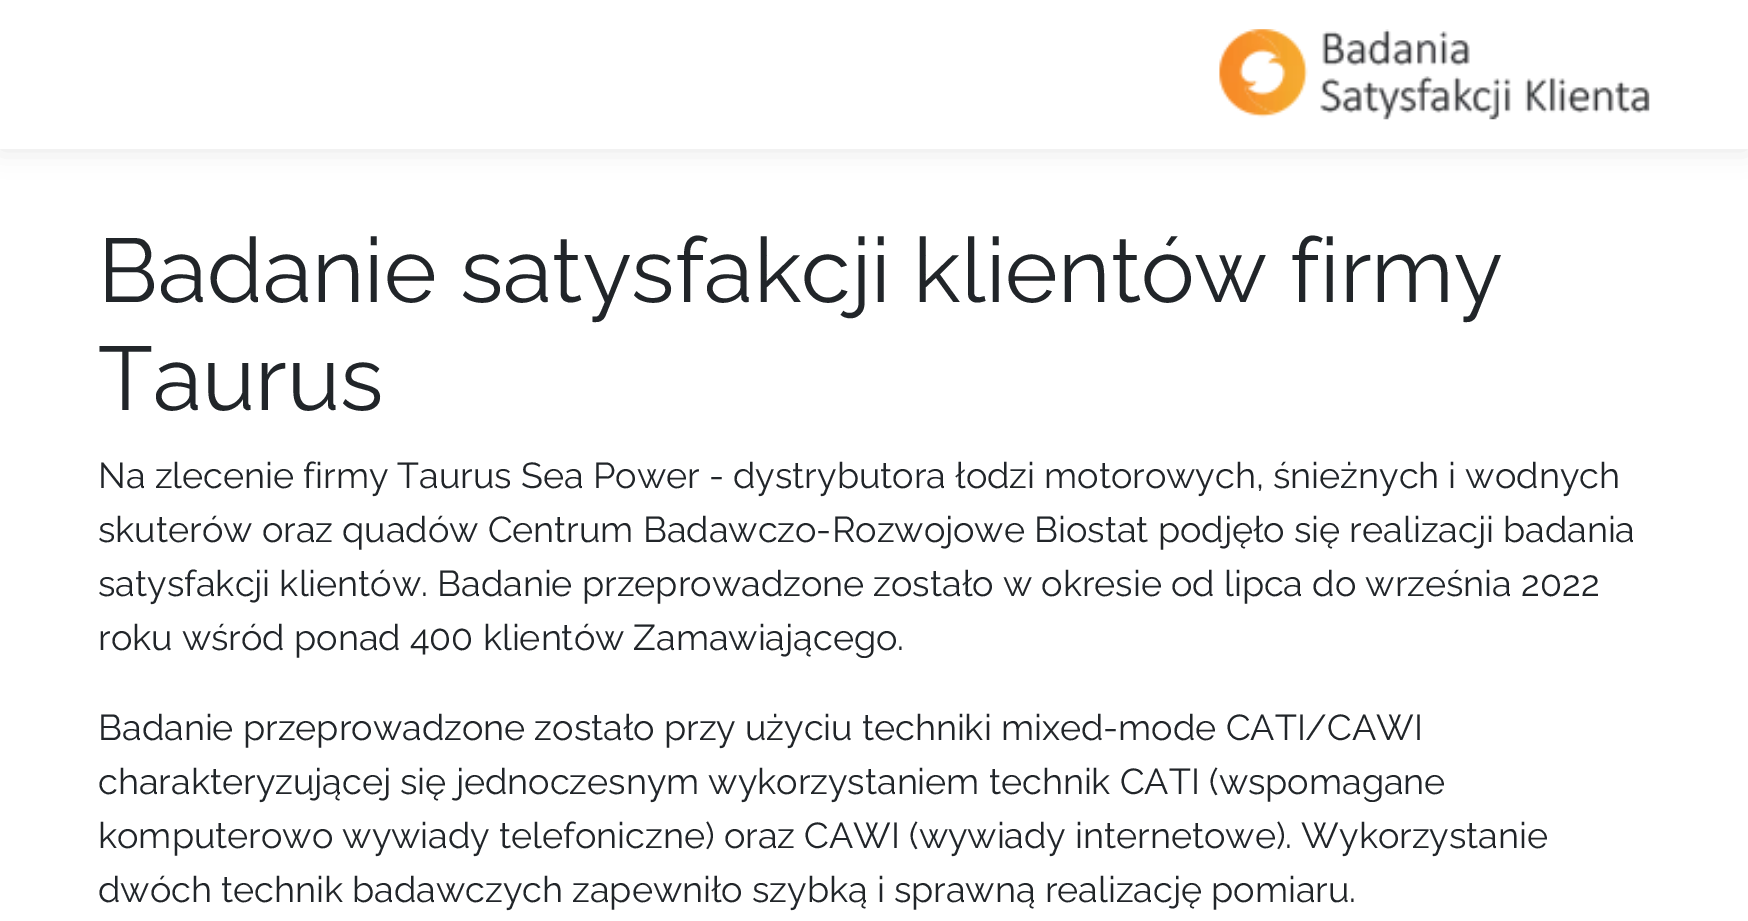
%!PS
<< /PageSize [1748 921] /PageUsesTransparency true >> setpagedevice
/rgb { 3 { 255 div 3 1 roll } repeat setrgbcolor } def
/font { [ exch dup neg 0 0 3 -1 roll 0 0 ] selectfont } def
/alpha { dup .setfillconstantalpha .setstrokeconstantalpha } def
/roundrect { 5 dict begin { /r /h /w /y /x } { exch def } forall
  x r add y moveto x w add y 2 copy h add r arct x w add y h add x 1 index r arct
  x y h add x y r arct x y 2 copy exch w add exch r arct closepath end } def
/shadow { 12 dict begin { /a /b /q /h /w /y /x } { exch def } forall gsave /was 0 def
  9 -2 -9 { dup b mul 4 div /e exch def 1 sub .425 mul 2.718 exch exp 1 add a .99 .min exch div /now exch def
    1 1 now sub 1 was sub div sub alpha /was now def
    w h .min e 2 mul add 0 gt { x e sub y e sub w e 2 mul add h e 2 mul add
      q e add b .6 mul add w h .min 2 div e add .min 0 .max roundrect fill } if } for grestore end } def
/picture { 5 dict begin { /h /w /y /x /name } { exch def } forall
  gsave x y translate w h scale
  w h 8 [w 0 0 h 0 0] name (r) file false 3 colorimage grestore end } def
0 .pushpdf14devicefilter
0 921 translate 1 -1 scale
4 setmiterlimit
255 255 255 rgb
0 0 1748 921 rectfill
0 0 0 rgb
0 0 1748 149 0 13.5 0.1 shadow
255 255 255 rgb
0 0 1748 149 rectfill
(img/1.rgb) 1219 29 431 91 picture
/Raleway-Thin 90 font
33 37 41 rgb
98 302 moveto (Badanie satysfakcji klientów firmy) show
98 410 moveto (Taurus) show
/Raleway-Thin 36 font
[
  [(Na zlecenie firmy Taurus Sea Power - dystrybutora łodzi motorowych, śnieżnych i wodnych) 98 488]
  [(skuterów oraz quadów Centrum Badawczo-Rozwojowe Biostat podjęło się realizacji badania) 98 542]
  [(satysfakcji klientów. Badanie przeprowadzone zostało w okresie od lipca do września 2022) 98 596]
  [(roku wśród ponad 400 klientów Zamawiającego.) 98 650]
  [(Badanie przeprowadzone zostało przy użyciu techniki mixed-mode CATI/CAWI) 98 740]
  [(charakteryzującej się jednoczesnym wykorzystaniem technik CATI \(wspomagane) 98 794]
  [(komputerowo wywiady telefoniczne\) oraz CAWI \(wywiady internetowe\). Wykorzystanie) 98 848]
  [(dwóch technik badawczych zapewniło szybką i sprawną realizację pomiaru.) 98 902]
] { aload pop moveto show } forall
.poppdf14devicefilter showpage
